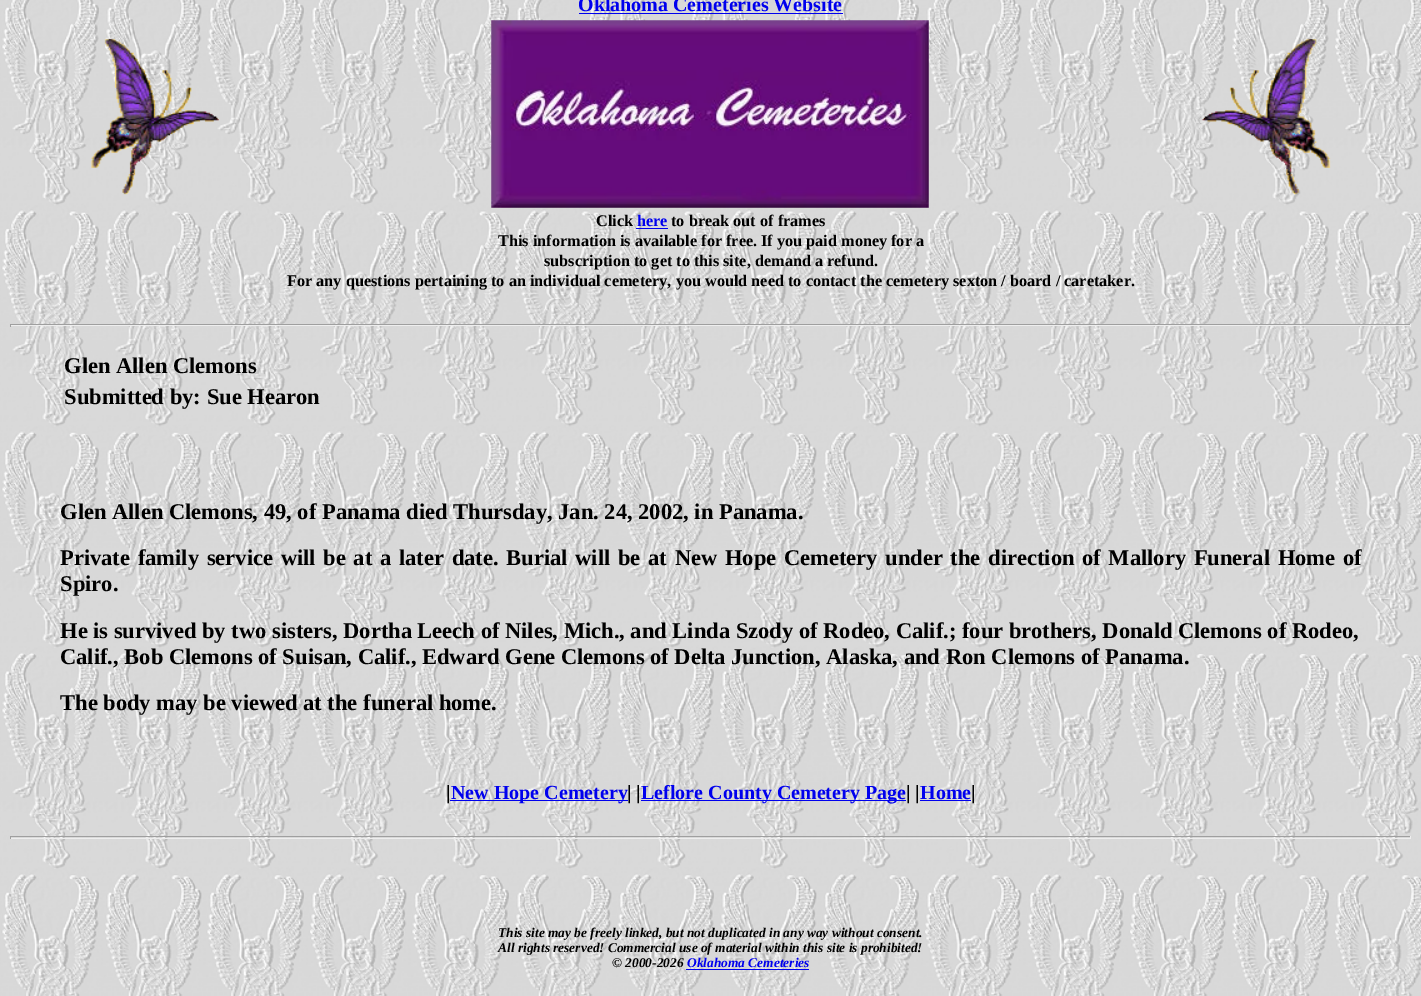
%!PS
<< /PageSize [1421 996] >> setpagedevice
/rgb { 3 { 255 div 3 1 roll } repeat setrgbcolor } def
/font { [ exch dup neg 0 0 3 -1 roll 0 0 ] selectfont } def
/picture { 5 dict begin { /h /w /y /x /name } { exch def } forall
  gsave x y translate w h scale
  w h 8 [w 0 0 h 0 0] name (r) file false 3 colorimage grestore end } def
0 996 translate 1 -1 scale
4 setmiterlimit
255 255 255 rgb
0 0 1421 996 rectfill
(img/1.rgb) 0 0 1421 996 picture
0 0 238 rgb
579 13 264 1 rectfill
(img/2.rgb) 91 38 128 157 picture
(img/3.rgb) 491 20 438 188 picture
(img/4.rgb) 1202 38 129 157 picture
[
  [636 228 32 1 0 0 238]
  [10 324 1401 1 159 159 159]
  [1410 324 1 3 238 238 238]
  [10 325 1401 1 238 238 238]
  [10 324 1 3 159 159 159]
  [450 800 178 1 0 0 238]
  [641 800 265 1 0 0 238]
  [920 800 51 1 0 0 238]
  [10 836 1401 1 159 159 159]
  [1410 836 1 3 238 238 238]
  [10 838 1401 1 238 238 238]
  [10 836 1 3 159 159 159]
  [686 969 123 1 0 0 238]
] { aload pop rgb rectfill } forall
/LiberationSerif-Bold 20 font
578 11 moveto (Oklahoma Cemeteries Website) show
/LiberationSerif-Bold 16.25 font
0 0 0 rgb
596 226 moveto (Click) show
0 0 238 rgb
637 226 moveto (here) show
0 0 0 rgb
[
  [(to break out of frames) 671 226]
  [(This information is available for free. If you paid money for a) 498 246]
  [(subscription to get to this site, demand a refund.) 544 266]
  [(For any questions pertaining to an individual cemetery, you would need to contact the cemetery sexton / board / caretaker.) 287 286]
] { aload pop moveto show } forall
/LiberationSerif-Bold 22.5 font
[
  [(Glen Allen Clemons) 64 373]
  [(Submitted by: Sue Hearon) 64 404]
  [(Glen Allen Clemons, 49, of Panama died Thursday, Jan. 24, 2002, in Panama.) 60 519]
] { aload pop moveto show } forall
60 565 moveto 2.1 0 32 (Private family service will be at a later date. Burial will be at New Hope Cemetery under the direction of Mallory Funeral Home of) widthshow
[
  [(Spiro.) 60 591]
  [(He is survived by two sisters, Dortha Leech of Niles, Mich., and Linda Szody of Rodeo, Calif.; four brothers, Donald Clemons of Rodeo,) 60 638]
  [(Calif., Bob Clemons of Suisan, Calif., Edward Gene Clemons of Delta Junction, Alaska, and Ron Clemons of Panama.) 60 664]
  [(The body may be viewed at the funeral home.) 60 710]
] { aload pop moveto show } forall
/LiberationSerif-Bold 20 font
446 799 moveto (|) show
0 0 238 rgb
451 799 moveto (New Hope Cemetery) show
0 0 0 rgb
627 799 moveto (| |) show
0 0 238 rgb
641 799 moveto (Leflore County Cemetery Page) show
0 0 0 rgb
906 799 moveto (| |) show
0 0 238 rgb
920 799 moveto (Home) show
0 0 0 rgb
971 799 moveto (|) show
/LiberationSerif-BoldItalic 13.4 font
[
  [(This site may be freely linked, but not duplicated in any way without consent.) 498 937]
  [(All rights reserved! Commercial use of material within this site is prohibited!) 498 952]
  [(© 2000-2026) 612 967]
] { aload pop moveto show } forall
0 0 238 rgb
687 967 moveto (Oklahoma Cemeteries) show
showpage
